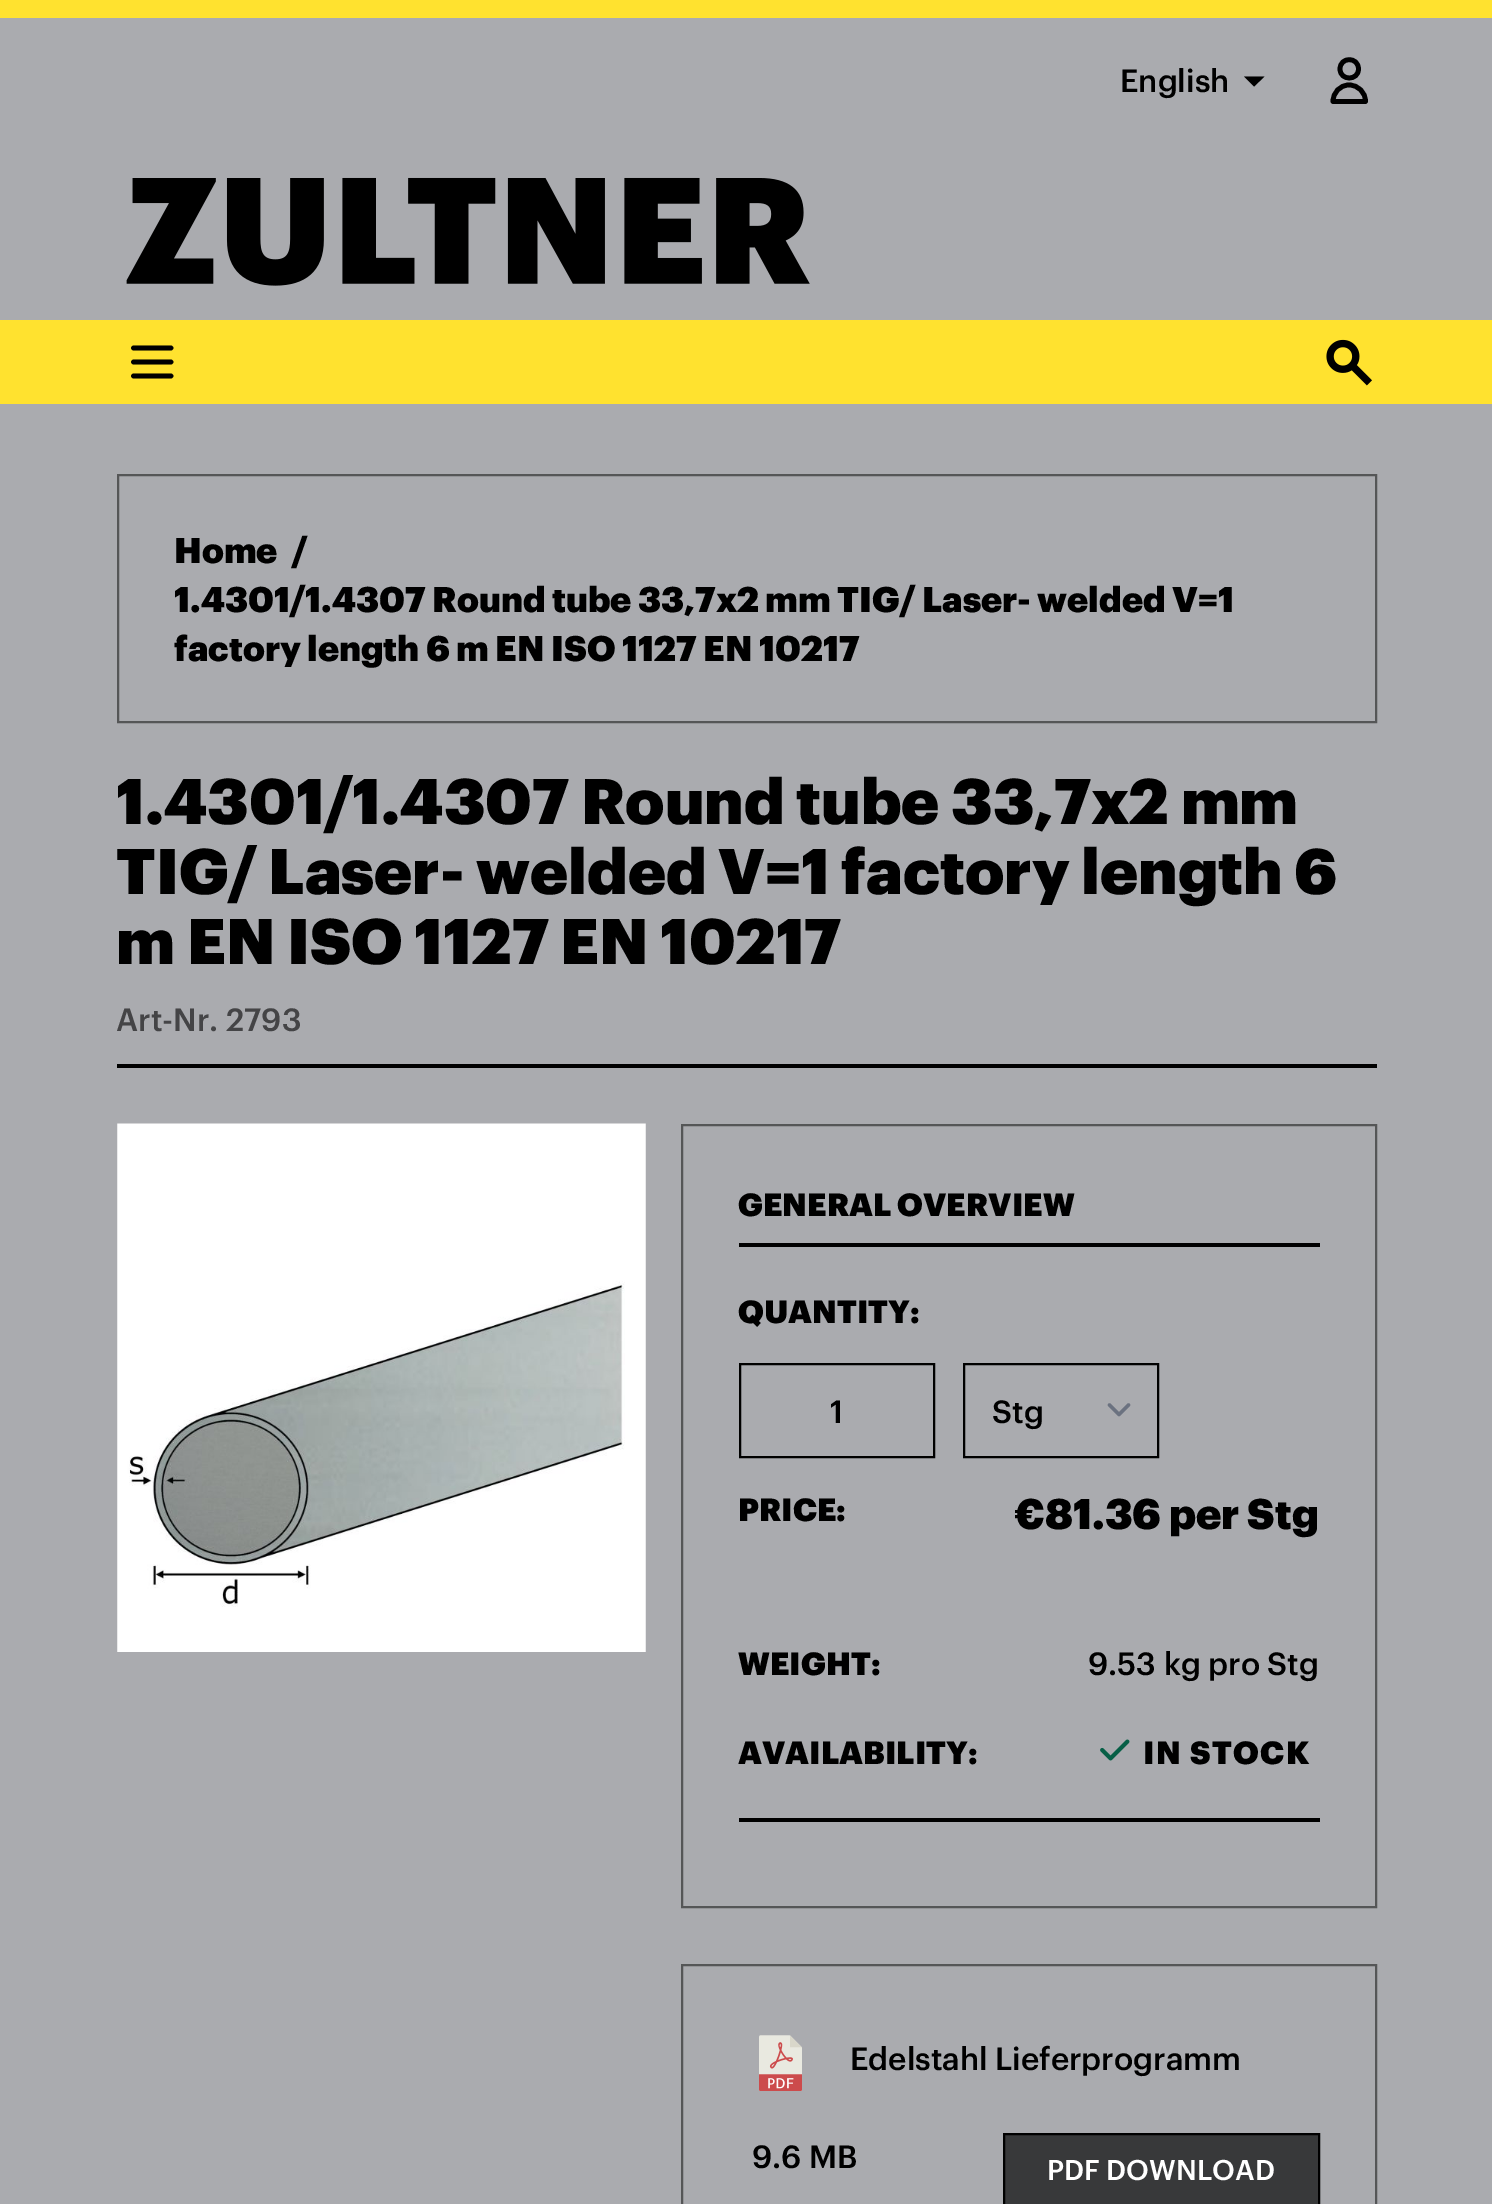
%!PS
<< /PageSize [1492 2204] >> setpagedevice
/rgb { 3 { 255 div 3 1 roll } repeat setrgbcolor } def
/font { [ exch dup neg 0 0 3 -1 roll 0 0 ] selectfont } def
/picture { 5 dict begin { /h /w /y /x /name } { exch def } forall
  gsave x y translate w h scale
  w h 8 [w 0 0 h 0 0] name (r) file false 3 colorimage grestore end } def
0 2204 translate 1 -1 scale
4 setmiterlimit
170 171 175 rgb
0 0 1492 2204 rectfill
255 226 47 rgb
0 0 1492 18 rectfill
0 0 0 rgb
1264.5 76.5 moveto 1254 86.5 lineto 1244 76.5 lineto closepath fill
4.7 setlinewidth
1 setlinecap
1 setlinejoin
1358.5 69 moveto 1358.5 81 1340 81 1340 69 curveto 1340 56.5 1358.5 56.5 1358.5 69 curveto closepath 1349 85 moveto 1340 85 1333 92.5 1333 101.5 curveto 1365.5 101.5 lineto 1365.5 92.5 1358.5 85 1349 85 curveto closepath stroke
(img/1.rgb) 126 177 684 109 picture
255 226 47 rgb
0 320 1492 84 rectfill
0 0 0 rgb
133.5 348 moveto 171 348 lineto 133.5 362 moveto 171 362 lineto 133.5 376 moveto 171 376 lineto stroke
(img/2.rgb) 1326 339 46 47 picture
85 86 87 rgb
2 setlinewidth
0 setlinecap
0 setlinejoin
118 475 1258 247 rectstroke
0 0 0 rgb
117 1064 1260 4 rectfill
(img/3.rgb) 117 1123 529 529 picture
85 86 87 rgb
682 1125 694 782 rectstroke
0 0 0 rgb
739 1243 581 4 rectfill
740 1364 194 93 rectstroke
107 114 128 rgb
3.5 setlinewidth
1 setlinecap
1 setlinejoin
1109.5 1405 moveto 1119 1414.5 lineto 1128.5 1405 lineto stroke
0 0 0 rgb
2 setlinewidth
0 setlinecap
0 setlinejoin
964 1364 194 93 rectstroke
(img/4.rgb) 1100 1739 30 22 picture
739 1818 581 4 rectfill
85 86 87 rgb
682 1965 694 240 rectstroke
(img/5.rgb) 759 2035 43 56 picture
56 57 58 rgb
1004 2134 moveto 1319 2134 lineto 1319 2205 lineto 1004 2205 lineto closepath gsave fill grestore
0 0 0 rgb
stroke
/Graphik-Medium 31.5 font
1120 92 moveto (English) show
/Graphik-ExtraBold 35 font
[
  [(Home) 174 563]
  [(/) 292 563]
  [(1.4301/1.4307 Round tube 33,7x2 mm TIG/ Laser- welded V=1) 174 612]
  [(factory length 6 m EN ISO 1127 EN 10217) 174 661]
] { aload pop moveto show } forall
/Graphik-ExtraBold 63 font
[
  [(1.4301/1.4307 Round tube 33,7x2 mm) 116 824]
  [(TIG/ Laser- welded V=1 factory length 6) 116 894]
  [(m EN ISO 1127 EN 10217) 116 964]
] { aload pop moveto show } forall
/Graphik-Medium 31.5 font
68 68 70 rgb
116 1031 moveto (Art-Nr. 2793) show
/Graphik-ExtraBold 31.5 font
0 0 0 rgb
738 1216 moveto (GENERAL OVERVIEW) show
738 1323 moveto (QUANTITY:) show
/Graphik-Medium 31.5 font
830 1423 moveto (1) show
992 1423 moveto (Stg) show
/Graphik-ExtraBold 31.5 font
738 1521 moveto (PRICE:) show
/Graphik-ExtraBold 42 font
1014 1529 moveto (€81.36 per Stg) show
/Graphik-ExtraBold 31.5 font
738 1675 moveto (WEIGHT:) show
/Graphik-Medium 31.5 font
1088 1675 moveto (9.53 kg pro Stg) show
/Graphik-ExtraBold 31.5 font
738 1764 moveto (AVAILABILITY:) show
1143 1764 moveto 1.5 0 (IN STOCK) ashow
/Graphik-Medium 31.5 font
850 2070 moveto (Edelstahl Lieferprogramm) show
752 2168 moveto (9.6 MB) show
/Graphik-Medium 28 font
255 255 255 rgb
1047 2180 moveto (PDF DOWNLOAD) show
showpage
